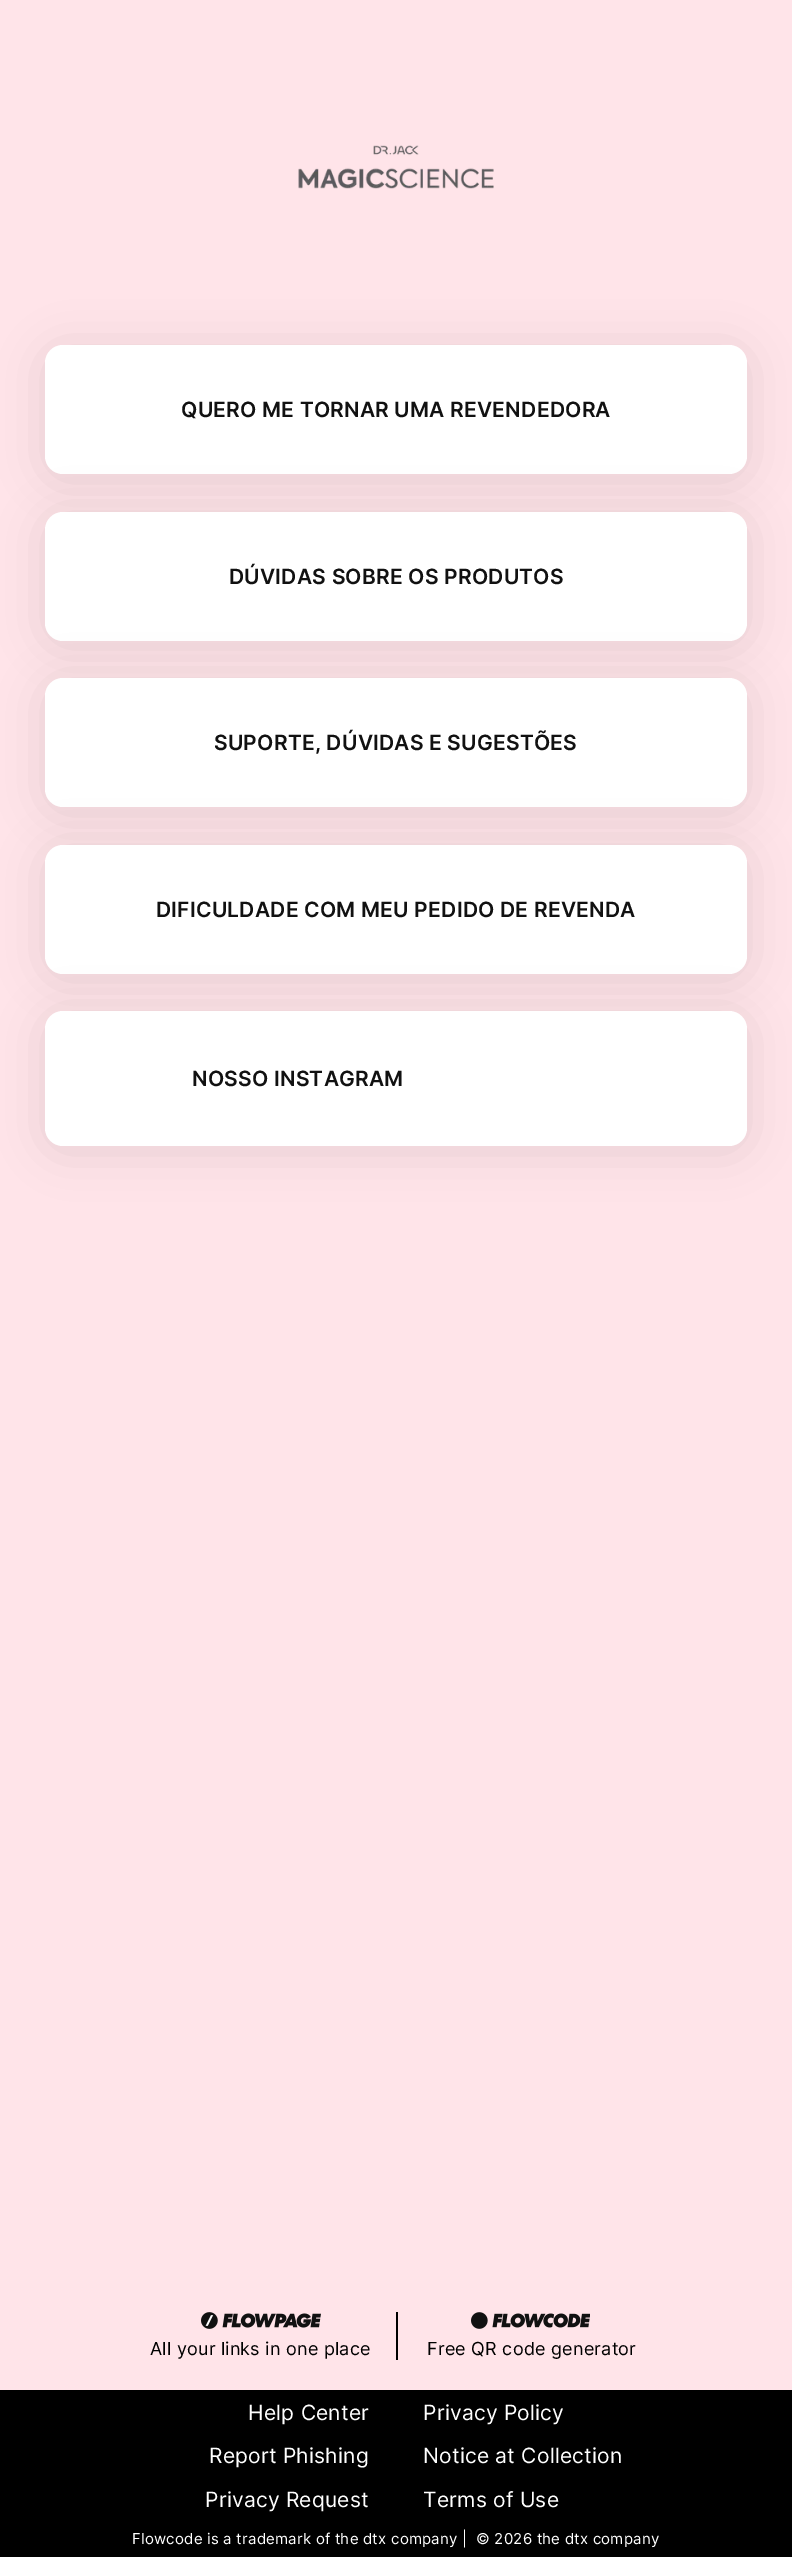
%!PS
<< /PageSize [792 2557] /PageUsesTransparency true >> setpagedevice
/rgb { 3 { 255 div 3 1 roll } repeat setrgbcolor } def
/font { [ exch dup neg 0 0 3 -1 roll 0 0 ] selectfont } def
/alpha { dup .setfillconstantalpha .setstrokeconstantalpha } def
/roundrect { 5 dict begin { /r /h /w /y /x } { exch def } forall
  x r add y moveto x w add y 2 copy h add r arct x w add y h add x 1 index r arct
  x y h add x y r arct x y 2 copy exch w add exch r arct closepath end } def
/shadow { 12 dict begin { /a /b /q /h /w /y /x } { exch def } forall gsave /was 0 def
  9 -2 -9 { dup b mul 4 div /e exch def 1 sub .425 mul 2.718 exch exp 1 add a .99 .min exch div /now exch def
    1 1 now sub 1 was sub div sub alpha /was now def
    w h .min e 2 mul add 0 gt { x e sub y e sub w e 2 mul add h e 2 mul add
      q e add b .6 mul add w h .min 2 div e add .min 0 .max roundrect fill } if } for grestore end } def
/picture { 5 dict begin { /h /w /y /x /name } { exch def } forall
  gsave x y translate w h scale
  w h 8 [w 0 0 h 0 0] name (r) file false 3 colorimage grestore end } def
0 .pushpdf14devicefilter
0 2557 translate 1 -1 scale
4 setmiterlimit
255 228 233 rgb
0 0 792 2557 rectfill
(img/1.rgb) 298 145 196 44 picture
0 0 0 rgb
45 350 702 129 18 22.5 0.1 shadow
255 255 255 rgb
45 345 702 129 18 roundrect fill
0 0 0 rgb
45 516 702 129 18 22.5 0.1 shadow
255 255 255 rgb
45 512 702 129 18 roundrect fill
0 0 0 rgb
45 683 702 129 18 22.5 0.1 shadow
255 255 255 rgb
45 678 702 129 18 roundrect fill
0 0 0 rgb
45 849 702 129 18 22.5 0.1 shadow
255 255 255 rgb
45 845 702 129 18 roundrect fill
0 0 0 rgb
45 1016 702 135 18 22.5 0.1 shadow
255 255 255 rgb
45 1011 702 135 18 roundrect fill
(img/2.rgb) 201 2312 120 17 picture
0 0 0 rgb
396 2312 2 48 rectfill
(img/3.rgb) 471 2312 119 17 picture
0 2390 792 167 rectfill
/Inter-SemiBold 21 font
17 17 17 rgb
181 417 moveto 0.22 0 (QUERO ME TORNAR UMA REVENDEDORA) ashow
229 584 moveto 0.22 0 (DÚVIDAS SOBRE OS PRODUTOS) ashow
214 750 moveto 0.22 0 (SUPORTE, DÚVIDAS E SUGESTÕES) ashow
156 917 moveto 0.22 0 (DIFICULDADE COM MEU PEDIDO DE REVENDA) ashow
192 1086 moveto 0.22 0 (NOSSO INSTAGRAM) ashow
/Inter-Regular 18 font
0 0 0 rgb
150 2355 moveto 0.22 0 (All your links in one place) ashow
427 2355 moveto 0.22 0 (Free QR code generator) ashow
/Inter-Regular 21 font
255 255 255 rgb
248 2420 moveto 0.22 0 (Help Center) ashow
209 2463 moveto 0.22 0 (Report Phishing) ashow
205 2507 moveto 0.22 0 (Privacy Request) ashow
423 2420 moveto 0.22 0 (Privacy Policy) ashow
423 2463 moveto 0.22 0 (Notice at Collection) ashow
423 2507 moveto 0.22 0 (Terms of Use) ashow
/Inter-Regular 15 font
132 2544 moveto 0.22 0 (Flowcode is a trademark of the dtx company |  © 2026 the dtx company) ashow
.poppdf14devicefilter showpage
